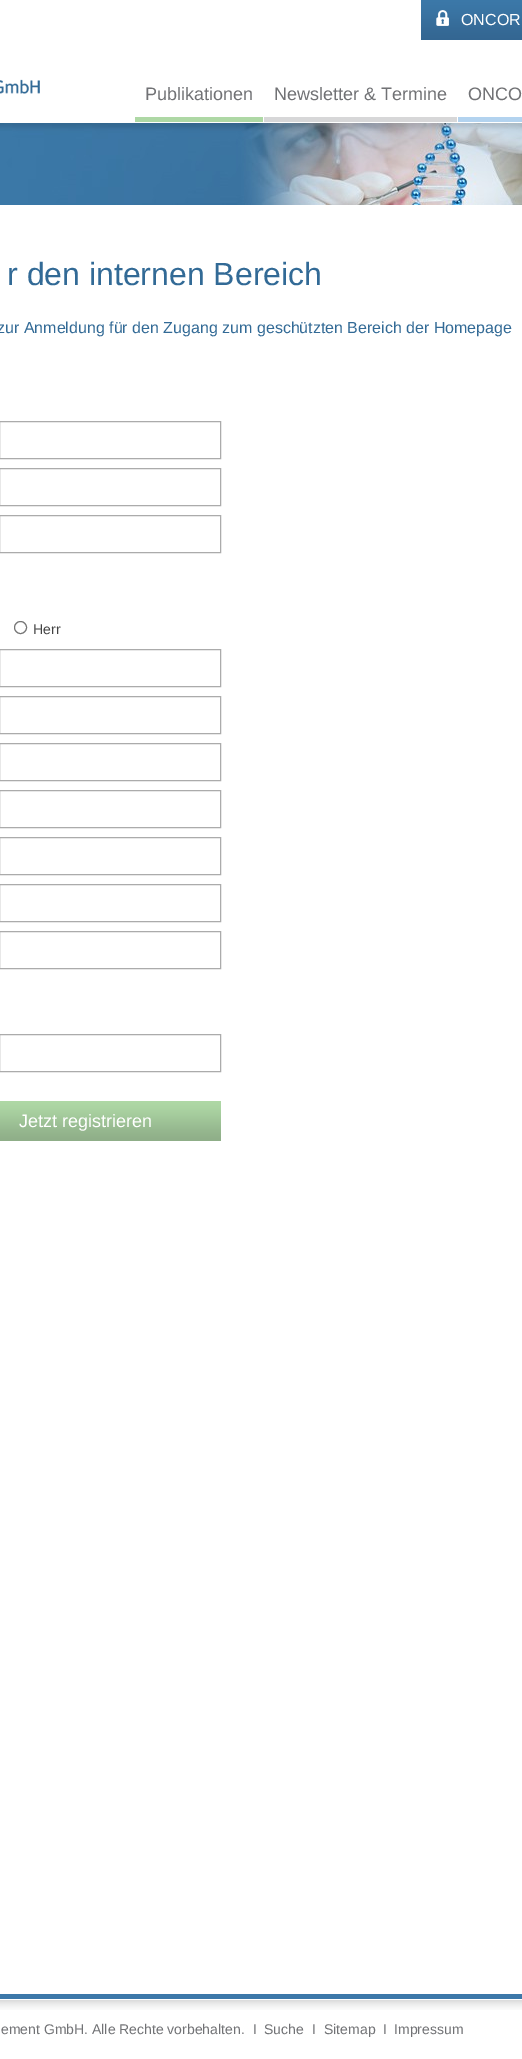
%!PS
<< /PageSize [522 2059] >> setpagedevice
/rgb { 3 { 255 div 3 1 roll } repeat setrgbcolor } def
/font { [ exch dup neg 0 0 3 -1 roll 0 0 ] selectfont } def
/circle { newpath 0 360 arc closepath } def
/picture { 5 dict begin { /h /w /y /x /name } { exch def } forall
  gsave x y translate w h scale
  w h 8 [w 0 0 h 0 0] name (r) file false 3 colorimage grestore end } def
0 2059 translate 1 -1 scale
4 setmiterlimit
255 255 255 rgb
0 0 522 2059 rectfill
(img/1.rgb) 421 0 101 40 picture
(img/2.rgb) 0 79 40 15 picture
[
  [135 117 128 5 174 216 165]
  [264 117 193 5 215 215 216]
  [458 117 64 5 179 211 239]
] { aload pop rgb rectfill } forall
(img/3.rgb) 0 123 522 82 picture
171 171 171 rgb
-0.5 421.5 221 37 rectstroke
-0.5 468.5 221 37 rectstroke
-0.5 515.5 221 37 rectstroke
118 118 118 rgb
20.5 627.5 6 circle stroke
171 171 171 rgb
-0.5 649.5 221 37 rectstroke
-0.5 696.5 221 37 rectstroke
-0.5 743.5 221 37 rectstroke
-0.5 790.5 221 37 rectstroke
-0.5 837.5 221 37 rectstroke
-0.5 884.5 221 37 rectstroke
-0.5 931.5 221 37 rectstroke
-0.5 1034.5 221 37 rectstroke
(img/4.rgb) 0 1101 221 40 picture
(img/5.rgb) 0 1994 522 16 picture
/LiberationSans-Regular 16 font
255 255 255 rgb
461 25 moveto (ONCOR) show
/LiberationSans-Regular 18 font
113 114 117 rgb
[
  [(Publikationen) 145 100]
  [(Newsletter & Termine) 274 100]
  [(ONCO) 468 100]
] { aload pop moveto show } forall
/LiberationSans-Regular 32 font
50 106 150 rgb
7 285 moveto (r den internen Bereich) show
/LiberationSans-Regular 16 font
-3 333 moveto (zur Anmeldung für den Zugang zum geschützten Bereich der Homepage) show
/LiberationSans-Regular 14 font
67 67 67 rgb
33 634 moveto (Herr) show
/LiberationSans-Regular 18 font
255 255 255 rgb
19 1127 moveto (Jetzt registrieren) show
/LiberationSans-Regular 14 font
113 114 117 rgb
[
  [(ement GmbH. Alle Rechte vorbehalten.) 1 2034]
  [(I) 253 2034]
  [(Suche) 264 2034]
  [(I) 312 2034]
  [(Sitemap) 324 2034]
  [(I) 383 2034]
  [(Impressum) 394 2034]
] { aload pop moveto show } forall
showpage
